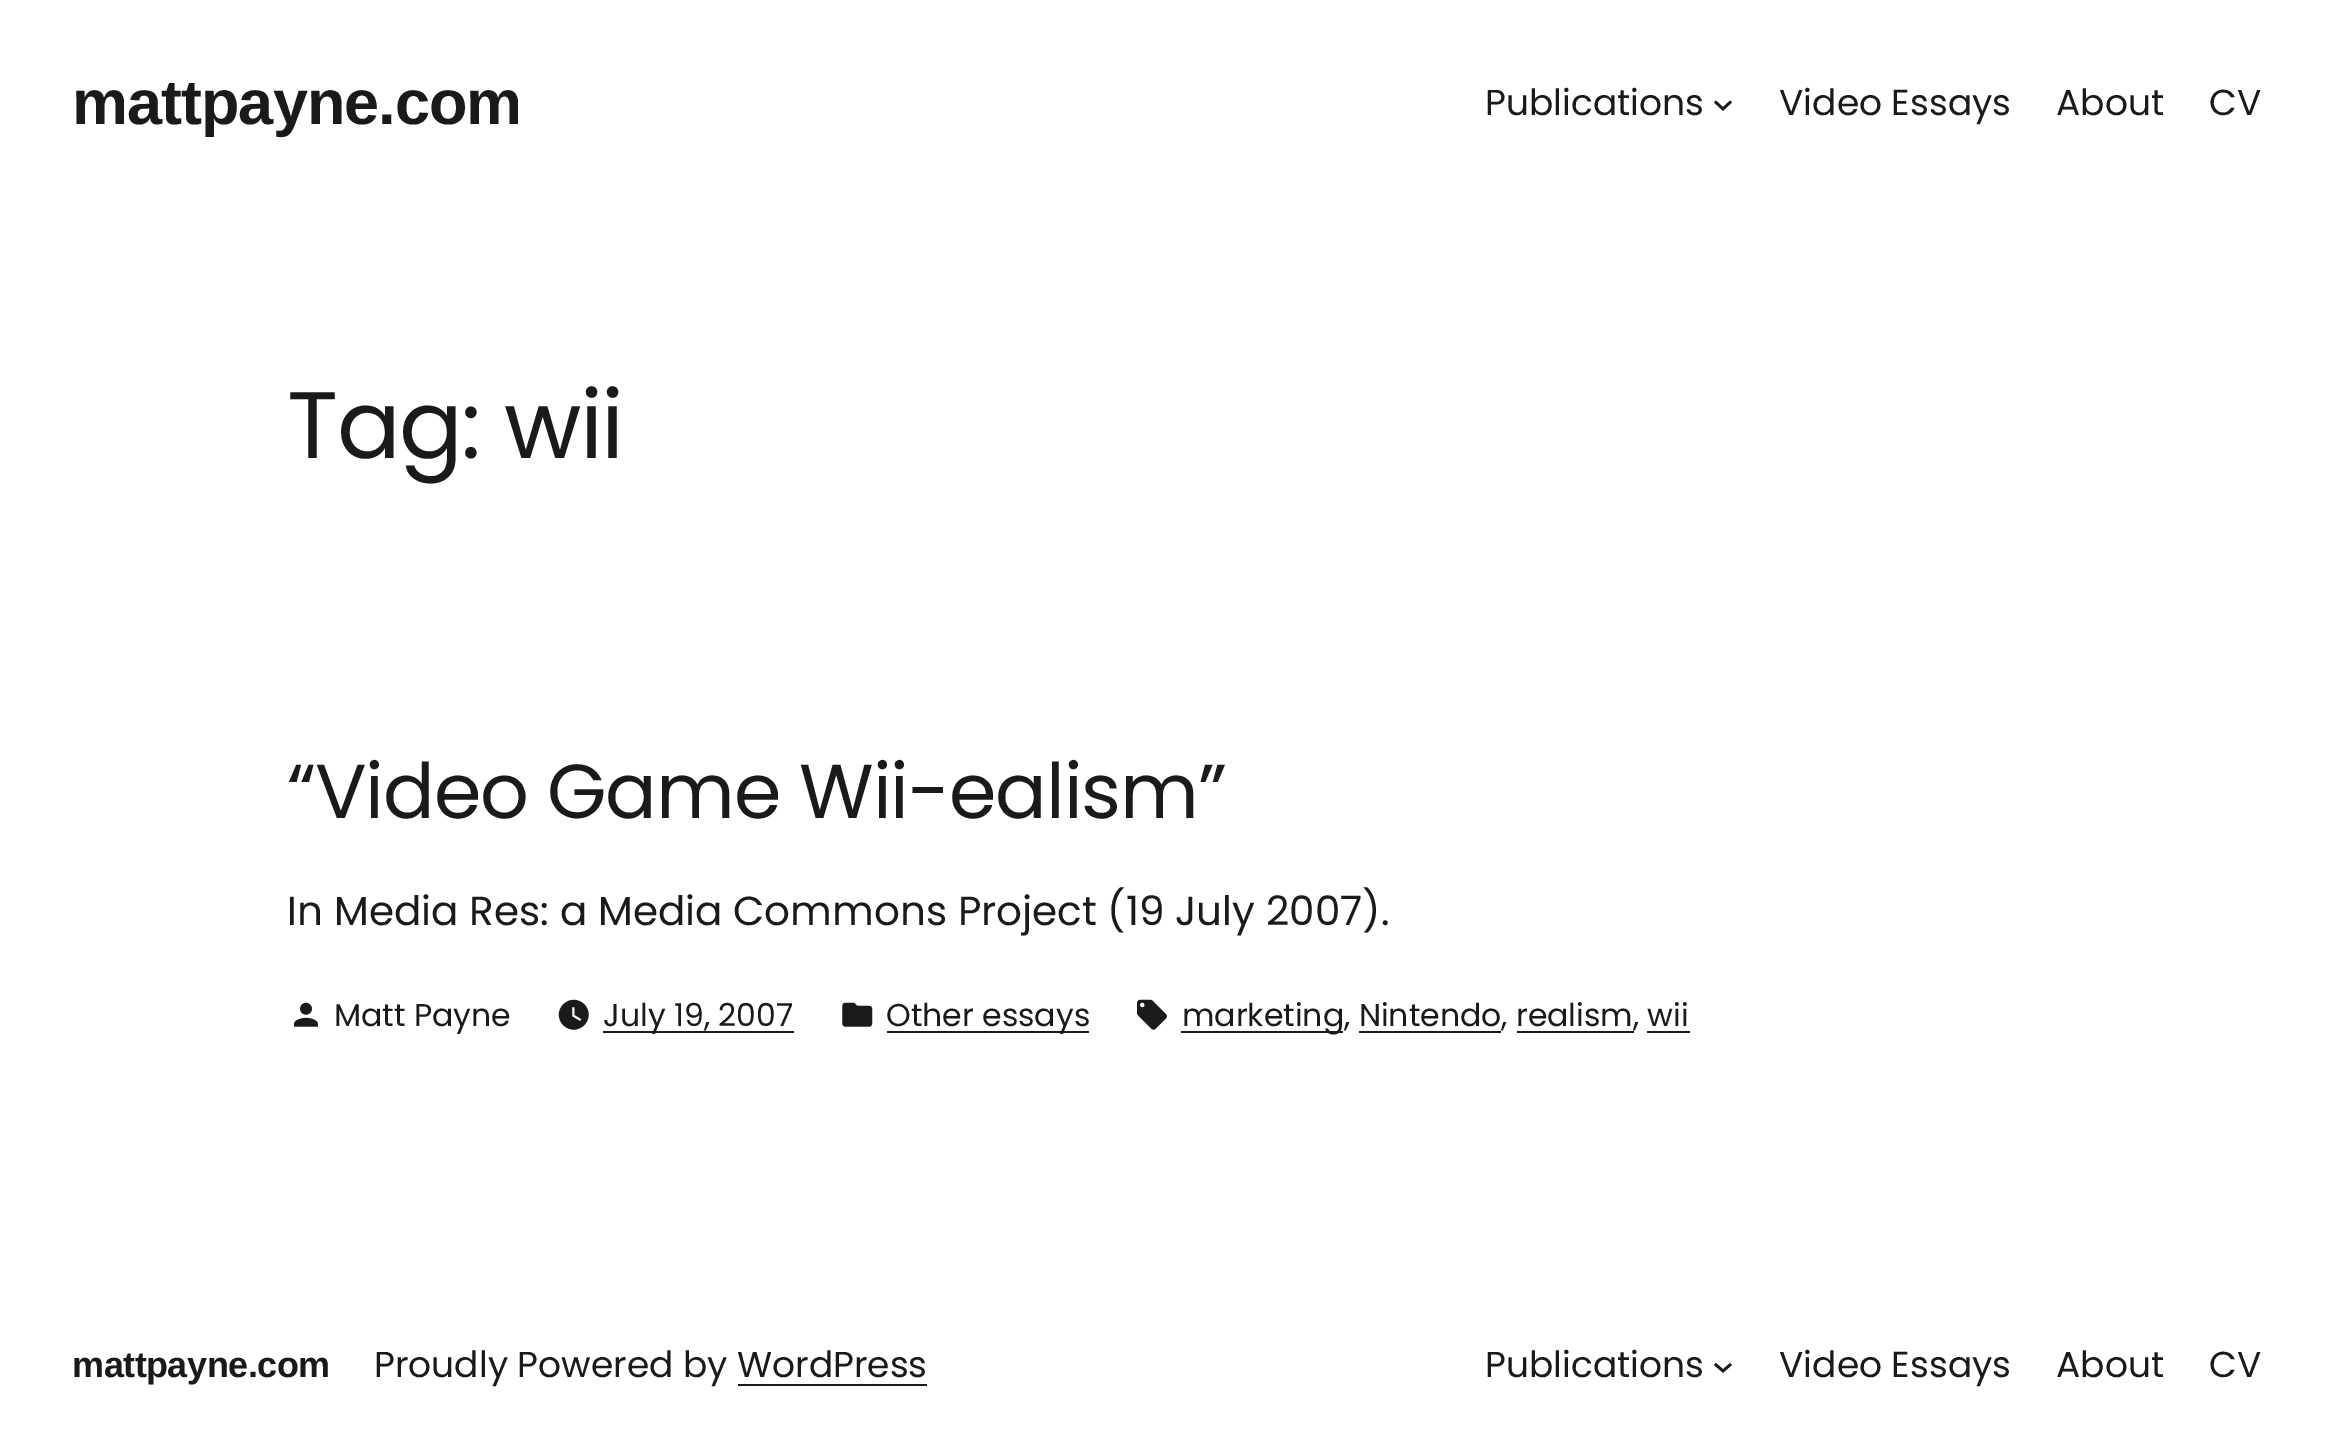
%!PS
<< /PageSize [2332 1448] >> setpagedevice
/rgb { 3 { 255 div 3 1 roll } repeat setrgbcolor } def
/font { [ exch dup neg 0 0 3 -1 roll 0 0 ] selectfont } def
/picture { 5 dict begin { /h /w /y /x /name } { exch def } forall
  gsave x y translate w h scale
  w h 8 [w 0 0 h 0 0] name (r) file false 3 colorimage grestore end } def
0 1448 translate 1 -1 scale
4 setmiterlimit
255 255 255 rgb
0 0 2332 1448 rectfill
26 26 26 rgb
2.7 setlinewidth
1715 101.5 moveto 1723 109 lineto 1731 101.5 lineto stroke
(img/1.rgb) 294 1002 24 25 picture
(img/2.rgb) 558 999 31 31 picture
603 1031 191 2 rectfill
(img/3.rgb) 842 1002 31 25 picture
887 1031 202 2 rectfill
(img/4.rgb) 1137 999 30 31 picture
[
  [1181 1031 162 2 26 26 26]
  [1359 1031 142 2 26 26 26]
  [1517 1031 117 2 26 26 26]
  [1647 1031 43 2 26 26 26]
  [738 1384 189 2 26 26 26]
] { aload pop rgb rectfill } forall
1715 1364 moveto 1723 1371 lineto 1731 1364 lineto stroke
/LiberationSans-Bold 63 font
72 124 moveto -1 0 (mattpayne.com) ashow
/Poppins-Regular 36 font
[
  [(Publications) 1485 115]
  [(Video Essays) 1779 115]
  [(About) 2056 115]
  [(CV) 2209 115]
] { aload pop moveto show } forall
/Poppins-Regular 94.5 font
287 458 moveto -1.5 0 (Tag: wii) ashow
/Poppins-Regular 76.5 font
287 818 moveto -1.15 0 (“Video Game Wii-ealism”) ashow
/Poppins-Regular 40.5 font
287 925 moveto (In Media Res: a Media Commons Project \(19 July 2007\).) show
/Poppins-Regular 31.5 font
[
  [(Matt Payne) 334 1026]
  [(July 19, 2007) 603 1026]
  [(Other essays) 886 1026]
  [(marketing, Nintendo, realism, wii) 1182 1026]
] { aload pop moveto show } forall
/LiberationSans-Bold 36 font
72 1377 moveto -0.5 0 (mattpayne.com) ashow
/Poppins-Regular 36 font
[
  [(Proudly Powered by WordPress) 374 1377]
  [(Publications) 1485 1377]
  [(Video Essays) 1779 1377]
  [(About) 2056 1377]
  [(CV) 2209 1377]
] { aload pop moveto show } forall
showpage
